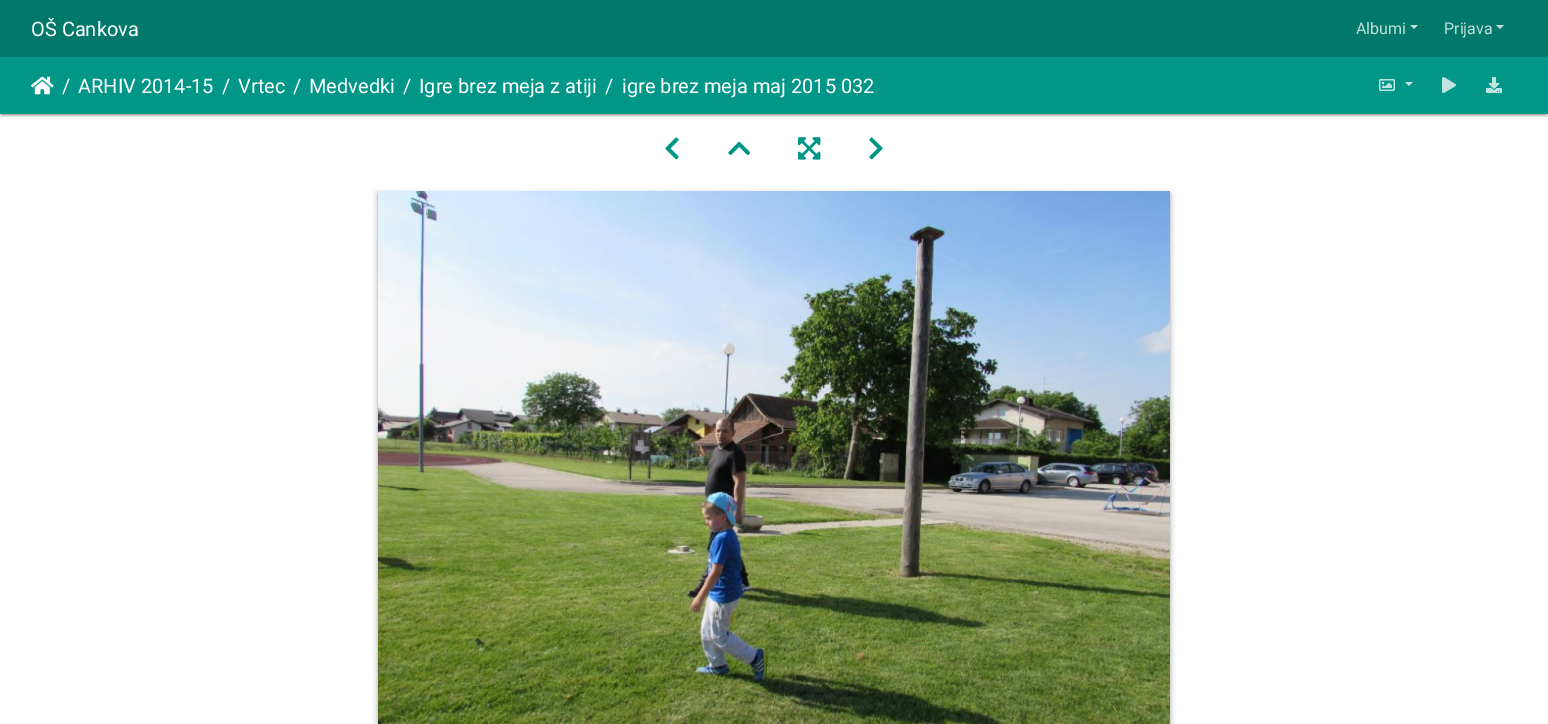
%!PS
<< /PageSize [1548 724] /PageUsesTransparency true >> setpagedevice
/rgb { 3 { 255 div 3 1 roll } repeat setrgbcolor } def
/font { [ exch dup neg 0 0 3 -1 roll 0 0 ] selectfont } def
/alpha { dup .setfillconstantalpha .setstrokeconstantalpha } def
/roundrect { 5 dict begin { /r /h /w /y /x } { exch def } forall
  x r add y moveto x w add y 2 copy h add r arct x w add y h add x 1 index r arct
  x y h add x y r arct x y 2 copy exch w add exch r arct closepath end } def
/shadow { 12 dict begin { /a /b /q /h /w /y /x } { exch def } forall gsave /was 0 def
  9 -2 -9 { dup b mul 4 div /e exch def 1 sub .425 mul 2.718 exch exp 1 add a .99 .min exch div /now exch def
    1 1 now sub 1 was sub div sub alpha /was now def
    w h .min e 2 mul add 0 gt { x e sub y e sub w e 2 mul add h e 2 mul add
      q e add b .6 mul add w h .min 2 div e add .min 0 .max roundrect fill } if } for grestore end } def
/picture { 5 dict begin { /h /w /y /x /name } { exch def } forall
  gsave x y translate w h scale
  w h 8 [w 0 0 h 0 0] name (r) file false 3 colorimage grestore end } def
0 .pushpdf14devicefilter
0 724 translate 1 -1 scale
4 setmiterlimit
255 255 255 rgb
0 0 1548 724 rectfill
0 0 0 rgb
0 58 1548 57 0 2.5 0.12 shadow
0 59 1548 57 0 1 0.14 shadow
0 121 107 rgb
0 0 1548 57 rectfill
191 222 218 rgb
1410 25 moveto 1418 25 lineto 1414 29 lineto closepath fill
1496 25 moveto 1504 25 lineto 1500 29 lineto closepath fill
0 0 0 rgb
2 62 1544 53 0 0.5 0.2 shadow
0 150 136 rgb
0 57 1548 57 rectfill
(img/1.rgb) 31 76 23 19 picture
(img/2.rgb) 1379 79 16 12 picture
191 229 225 rgb
1405 82 moveto 1413 82 lineto 1409 86 lineto closepath fill
(img/3.rgb) 1442 77 14 16 picture
(img/4.rgb) 1486 77 16 16 picture
(img/5.rgb) 665 137 14 23 picture
(img/6.rgb) 728 141 23 14 picture
(img/7.rgb) 798 137 23 23 picture
(img/8.rgb) 869 137 14 23 picture
0 0 0 rgb
378 194 792 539 0 3 0.23 shadow
378 194 792 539 0 3 0.16 shadow
(img/9.rgb) 378 191 792 533 picture
/Roboto-Regular 20 font
255 255 255 rgb
31 36 moveto (OŠ Cankova) show
/Roboto-Regular 16 font
191 222 218 rgb
1356 34 moveto (Albumi) show
1444 34 moveto (Prijava) show
/Roboto-Regular 20 font
255 255 255 rgb
[
  [(/) 62 93]
  [(ARHIV 2014-15) 78 93]
  [(/) 222 93]
  [(Vrtec) 238 93]
  [(/) 293 93]
  [(Medvedki) 309 93]
  [(/) 403 93]
  [(Igre brez meja z atiji) 419 93]
  [(/) 605 93]
  [(igre brez meja maj 2015 032) 622 93]
] { aload pop moveto show } forall
.poppdf14devicefilter showpage
